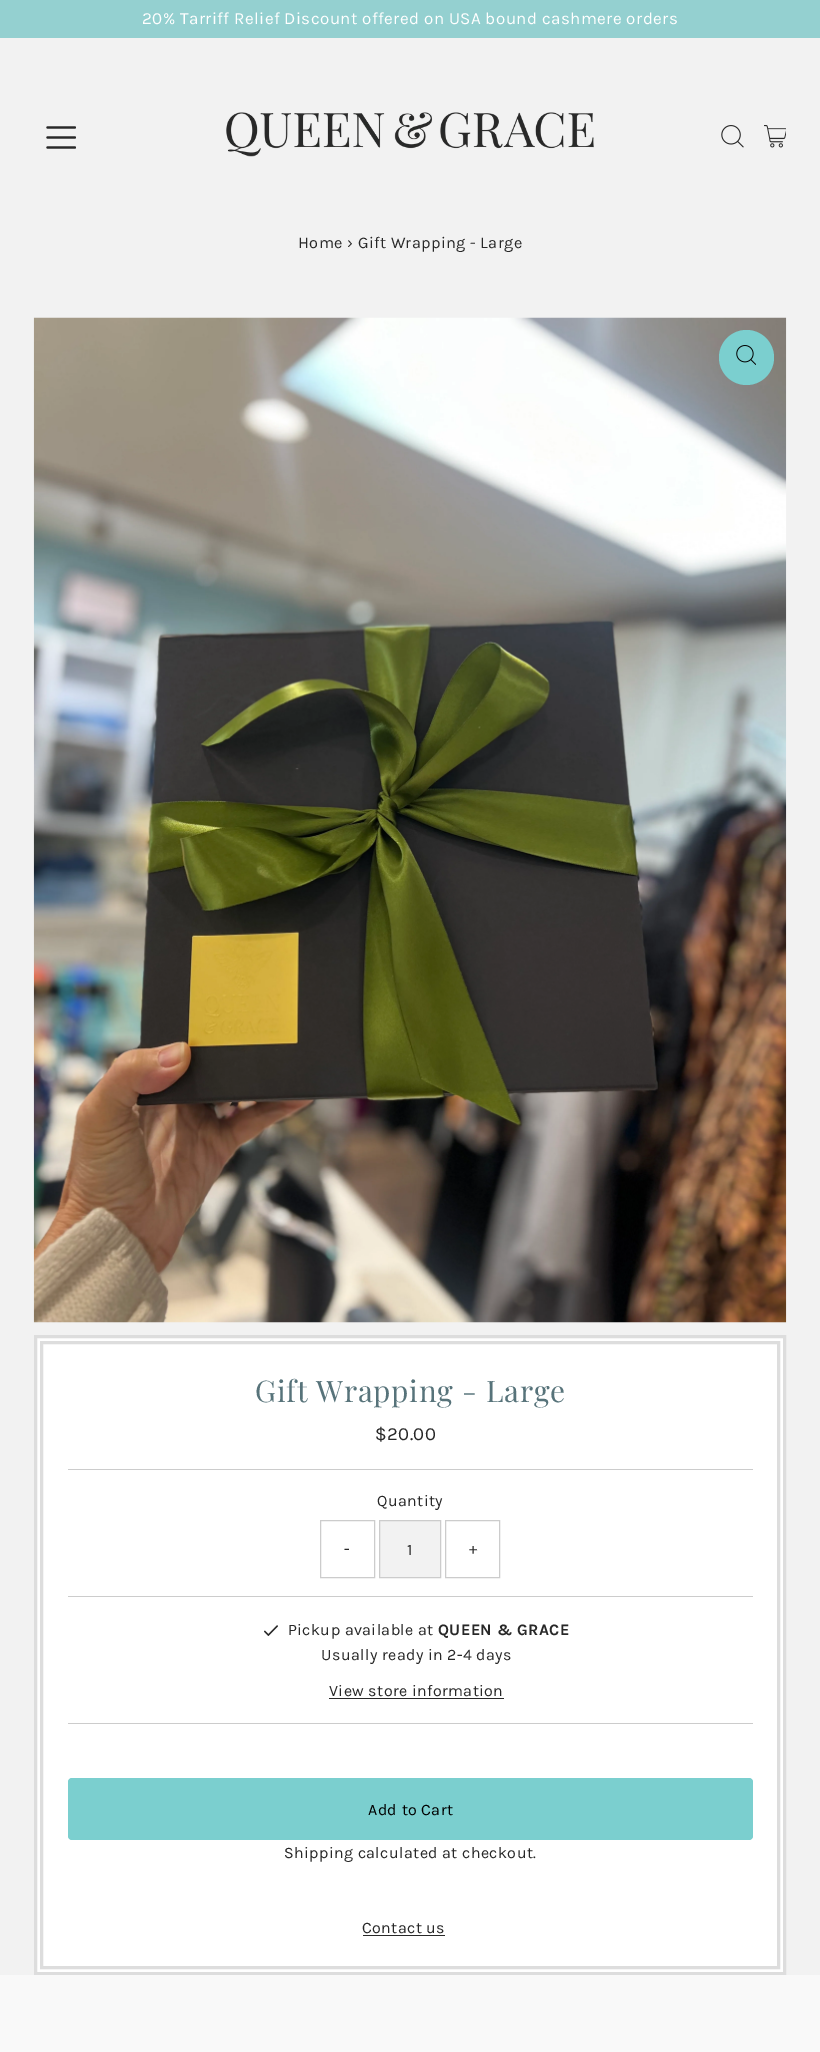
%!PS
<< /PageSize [820 2052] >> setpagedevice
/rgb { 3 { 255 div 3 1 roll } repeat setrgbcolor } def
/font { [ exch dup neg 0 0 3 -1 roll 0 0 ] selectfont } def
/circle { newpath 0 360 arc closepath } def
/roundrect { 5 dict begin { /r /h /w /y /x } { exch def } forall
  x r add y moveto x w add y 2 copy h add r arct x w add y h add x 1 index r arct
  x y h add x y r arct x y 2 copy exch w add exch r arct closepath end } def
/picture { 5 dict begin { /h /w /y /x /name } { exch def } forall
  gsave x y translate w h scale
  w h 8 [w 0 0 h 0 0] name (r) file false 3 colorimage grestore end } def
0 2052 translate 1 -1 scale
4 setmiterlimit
242 242 242 rgb
0 0 820 2052 rectfill
148 208 208 rgb
0 0 820 38 rectfill
(img/1.rgb) 46 126 30 23 picture
(img/2.rgb) 226 112 368 45 picture
(img/3.rgb) 721 125 23 23 picture
(img/4.rgb) 764 125 22 23 picture
(img/5.rgb) 33 317 754 1006 picture
123 207 207 rgb
746.5 357.5 27.5 circle fill
(img/6.rgb) 736 345 20 20 picture
255 255 255 rgb
35.5 1336.5 moveto 784.5 1336.5 lineto 784.5 1973.5 lineto 35.5 1973.5 lineto closepath gsave fill grestore
221 221 221 rgb
3 setlinewidth
stroke
41.5 1342.5 737 625 rectstroke
204 204 204 rgb
68 1469 685 1 rectfill
1 setlinewidth
320.5 1520.5 54 57 rectstroke
242 242 242 rgb
379.5 1520.5 moveto 440.5 1520.5 lineto 440.5 1577.5 lineto 379.5 1577.5 lineto closepath gsave fill grestore
204 204 204 rgb
stroke
445.5 1520.5 54 57 rectstroke
68 1596 685 1 rectfill
68 1723 685 1 rectfill
(img/7.rgb) 264 1625 14 11 picture
40 40 40 rgb
329 1698 175 1 rectfill
123 207 207 rgb
68 1778 685 62 4 roundrect fill
40 40 40 rgb
363 1935 82 1 rectfill
249 249 249 rgb
0 1975 820 77 rectfill
/Karla-Regular 17 font
255 255 255 rgb
142 24 moveto 0.4 0 (20% Tarriff Relief Discount offered on USA bound cashmere orders) ashow
/Karla-Regular 16.25 font
40 40 40 rgb
298 248 moveto 0.4 0 (Home › Gift Wrapping - Large) ashow
/PlayfairDisplay-Regular 29.75 font
87 115 122 rgb
255 1402 moveto 0.75 0 (Gift Wrapping - Large) ashow
/Karla-Regular 18.5 font
40 40 40 rgb
375 1440 moveto 0.4 0 ($20.00) ashow
/Karla-Regular 16 font
377 1506 moveto 0.4 0 (Quantity) ashow
344 1554 moveto 0.4 0 (-) ashow
407 1555 moveto 0.4 0 (1) ashow
469 1554 moveto 0.4 0 (+) ashow
288 1635 moveto 0.4 0 (Pickup available at) ashow
/Karla-Bold 16 font
438 1635 moveto 0.4 0 (QUEEN & GRACE) ashow
/Karla-Regular 16 font
321 1660 moveto 0.4 0 (Usually ready in 2-4 days) ashow
329 1696 moveto 0.4 0 (View store information) ashow
0 0 0 rgb
368 1815 moveto 0.4 0 (Add to Cart) ashow
40 40 40 rgb
284 1858 moveto 0.4 0 (Shipping calculated at checkout.) ashow
362 1933 moveto 0.4 0 (Contact us) ashow
showpage
